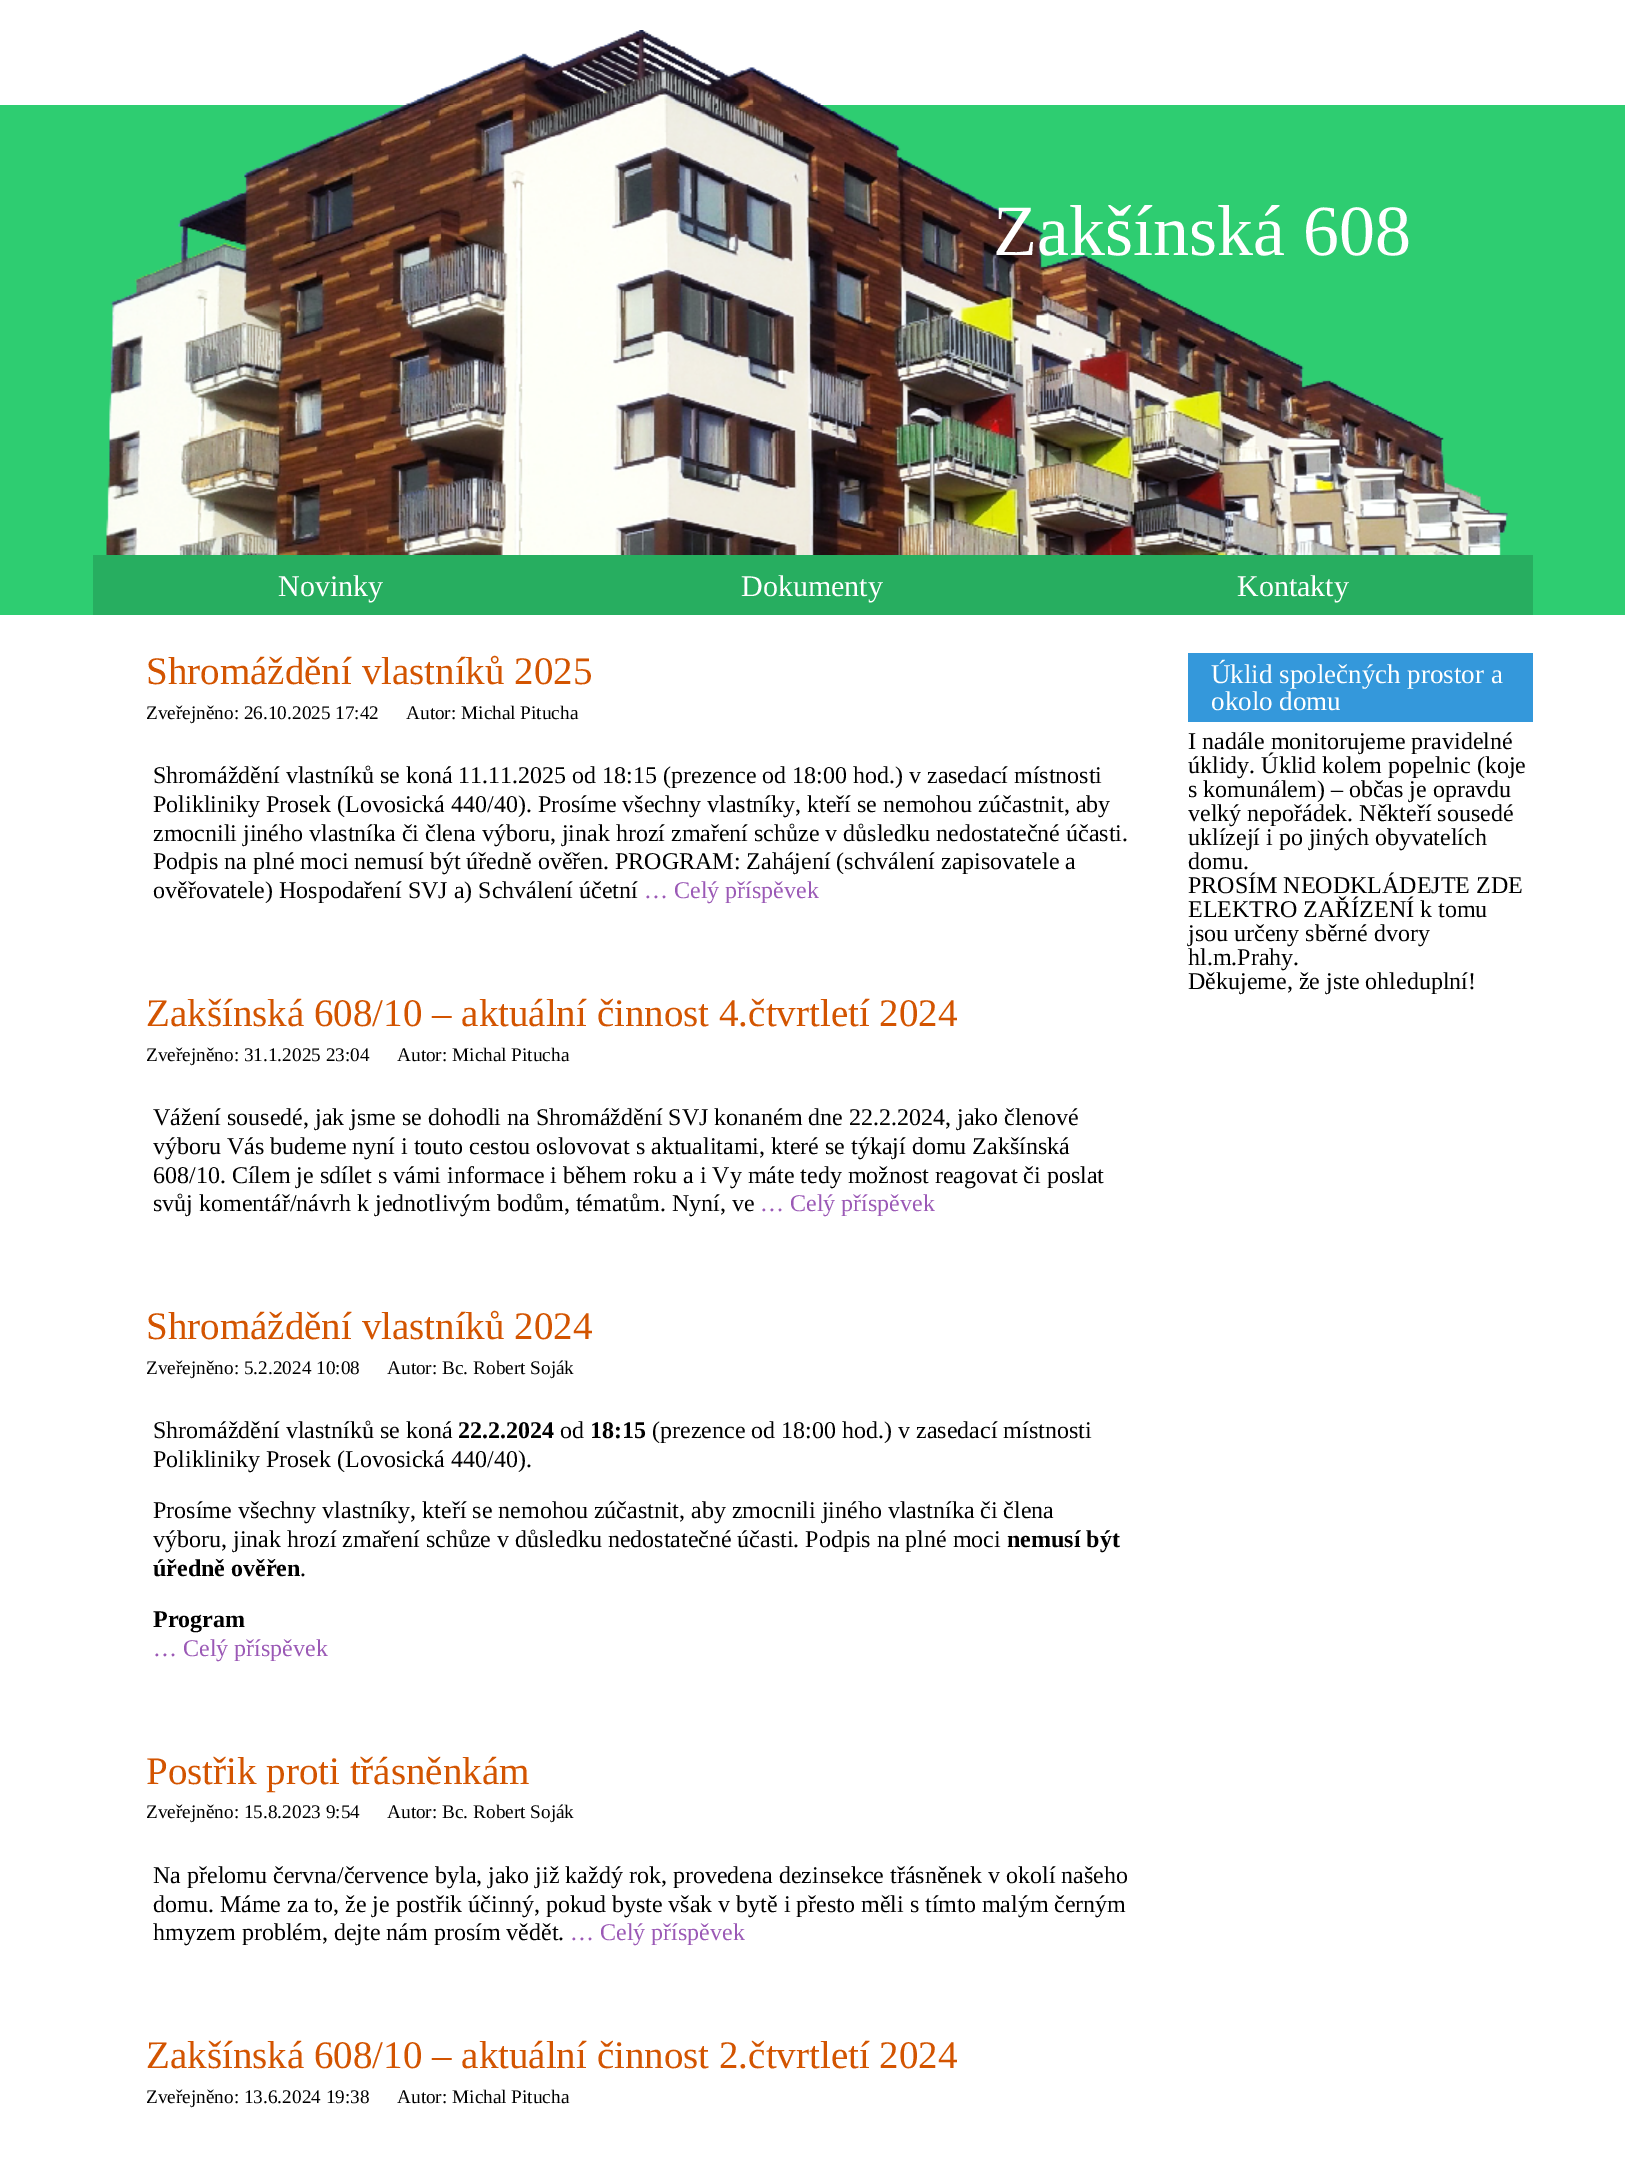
%!PS
<< /PageSize [1625 2161] >> setpagedevice
/rgb { 3 { 255 div 3 1 roll } repeat setrgbcolor } def
/font { [ exch dup neg 0 0 3 -1 roll 0 0 ] selectfont } def
/picture { 5 dict begin { /h /w /y /x /name } { exch def } forall
  gsave x y translate w h scale
  w h 8 [w 0 0 h 0 0] name (r) file false 3 colorimage grestore end } def
0 2161 translate 1 -1 scale
4 setmiterlimit
255 255 255 rgb
0 0 1625 2161 rectfill
(img/1.rgb) 405 30 417 75 picture
46 205 113 rgb
0 105 1625 510 rectfill
(img/2.rgb) 106 105 1402 450 picture
39 174 96 rgb
93 555 1440 60 rectfill
52 152 219 rgb
1188 653 345 69 rectfill
/LiberationSerif-Regular 72 font
255 255 255 rgb
993 255 moveto (Zakšínská 608) show
/LiberationSerif-Regular 30 font
[
  [(Novinky) 278 596]
  [(Dokumenty) 741 596]
  [(Kontakty) 1237 596]
] { aload pop moveto show } forall
/LiberationSerif-Regular 39 font
211 84 0 rgb
146 684 moveto (Shromáždění vlastníků 2025) show
/LiberationSerif-Regular 19.25 font
0 0 0 rgb
146 719 moveto (Zveřejněno: 26.10.2025 17:42) show
406 719 moveto (Autor: Michal Pitucha) show
/LiberationSerif-Regular 24 font
[
  [(Shromáždění vlastníků se koná 11.11.2025 od 18:15 \(prezence od 18:00 hod.\) v zasedací místnosti) 153 783]
  [(Polikliniky Prosek \(Lovosická 440/40\). Prosíme všechny vlastníky, kteří se nemohou zúčastnit, aby) 153 812]
  [(zmocnili jiného vlastníka či člena výboru, jinak hrozí zmaření schůze v důsledku nedostatečné účasti.) 153 841]
  [(Podpis na plné moci nemusí být úředně ověřen. PROGRAM: Zahájení \(schválení zapisovatele a) 153 869]
  [(ověřovatele\) Hospodaření SVJ a\) Schválení účetní) 153 898]
] { aload pop moveto show } forall
155 89 182 rgb
644 898 moveto (… Celý příspěvek) show
/LiberationSerif-Regular 39 font
211 84 0 rgb
146 1026 moveto (Zakšínská 608/10 – aktuální činnost 4.čtvrtletí 2024) show
/LiberationSerif-Regular 19.25 font
0 0 0 rgb
146 1061 moveto (Zveřejněno: 31.1.2025 23:04) show
397 1061 moveto (Autor: Michal Pitucha) show
/LiberationSerif-Regular 24 font
[
  [(Vážení sousedé, jak jsme se dohodli na Shromáždění SVJ konaném dne 22.2.2024, jako členové) 153 1125]
  [(výboru Vás budeme nyní i touto cestou oslovovat s aktualitami, které se týkají domu Zakšínská) 153 1154]
  [(608/10. Cílem je sdílet s vámi informace i během roku a i Vy máte tedy možnost reagovat či poslat) 153 1183]
  [(svůj komentář/návrh k jednotlivým bodům, tématům. Nyní, ve) 153 1211]
] { aload pop moveto show } forall
155 89 182 rgb
760 1211 moveto (… Celý příspěvek) show
/LiberationSerif-Regular 39 font
211 84 0 rgb
146 1339 moveto (Shromáždění vlastníků 2024) show
/LiberationSerif-Regular 19.25 font
0 0 0 rgb
146 1374 moveto (Zveřejněno: 5.2.2024 10:08) show
387 1374 moveto (Autor: Bc. Robert Soják) show
/LiberationSerif-Regular 24 font
153 1438 moveto (Shromáždění vlastníků se koná) show
/LiberationSerif-Bold 24 font
458 1438 moveto (22.2.2024) show
/LiberationSerif-Regular 24 font
560 1438 moveto (od) show
/LiberationSerif-Bold 24 font
590 1438 moveto (18:15) show
/LiberationSerif-Regular 24 font
[
  [(\(prezence od 18:00 hod.\) v zasedací místnosti) 652 1438]
  [(Polikliniky Prosek \(Lovosická 440/40\).) 153 1467]
  [(Prosíme všechny vlastníky, kteří se nemohou zúčastnit, aby zmocnili jiného vlastníka či člena) 153 1518]
  [(výboru, jinak hrozí zmaření schůze v důsledku nedostatečné účasti. Podpis na plné moci) 153 1547]
] { aload pop moveto show } forall
/LiberationSerif-Bold 24 font
1007 1547 moveto (nemusí být) show
153 1576 moveto (úředně ověřen) show
/LiberationSerif-Regular 24 font
300 1576 moveto (.) show
/LiberationSerif-Bold 24 font
153 1627 moveto (Program) show
/LiberationSerif-Regular 24 font
155 89 182 rgb
153 1656 moveto (… Celý příspěvek) show
/LiberationSerif-Regular 39 font
211 84 0 rgb
146 1784 moveto (Postřik proti třásněnkám) show
/LiberationSerif-Regular 19.25 font
0 0 0 rgb
146 1818 moveto (Zveřejněno: 15.8.2023 9:54) show
387 1818 moveto (Autor: Bc. Robert Soják) show
/LiberationSerif-Regular 24 font
[
  [(Na přelomu června/července byla, jako již každý rok, provedena dezinsekce třásněnek v okolí našeho) 153 1883]
  [(domu. Máme za to, že je postřik účinný, pokud byste však v bytě i přesto měli s tímto malým černým) 153 1912]
  [(hmyzem problém, dejte nám prosím vědět.) 153 1940]
] { aload pop moveto show } forall
155 89 182 rgb
570 1940 moveto (… Celý příspěvek) show
/LiberationSerif-Regular 39 font
211 84 0 rgb
146 2068 moveto (Zakšínská 608/10 – aktuální činnost 2.čtvrtletí 2024) show
/LiberationSerif-Regular 19.25 font
0 0 0 rgb
146 2103 moveto (Zveřejněno: 13.6.2024 19:38) show
397 2103 moveto (Autor: Michal Pitucha) show
/LiberationSerif-Regular 27 font
255 255 255 rgb
1211 683 moveto (Úklid společných prostor a) show
1211 710 moveto (okolo domu) show
/LiberationSerif-Regular 24 font
0 0 0 rgb
[
  [(I nadále monitorujeme pravidelné) 1188 749]
  [(úklidy. Úklid kolem popelnic \(koje) 1188 773]
  [(s komunálem\) – občas je opravdu) 1188 797]
  [(velký nepořádek. Někteří sousedé) 1188 821]
  [(uklízejí i po jiných obyvatelích) 1188 845]
  [(domu.) 1188 869]
  [(PROSÍM NEODKLÁDEJTE ZDE) 1188 893]
  [(ELEKTRO ZAŘÍZENÍ k tomu) 1188 917]
  [(jsou určeny sběrné dvory) 1188 941]
  [(hl.m.Prahy.) 1188 965]
  [(Děkujeme, že jste ohleduplní!) 1188 989]
] { aload pop moveto show } forall
showpage
